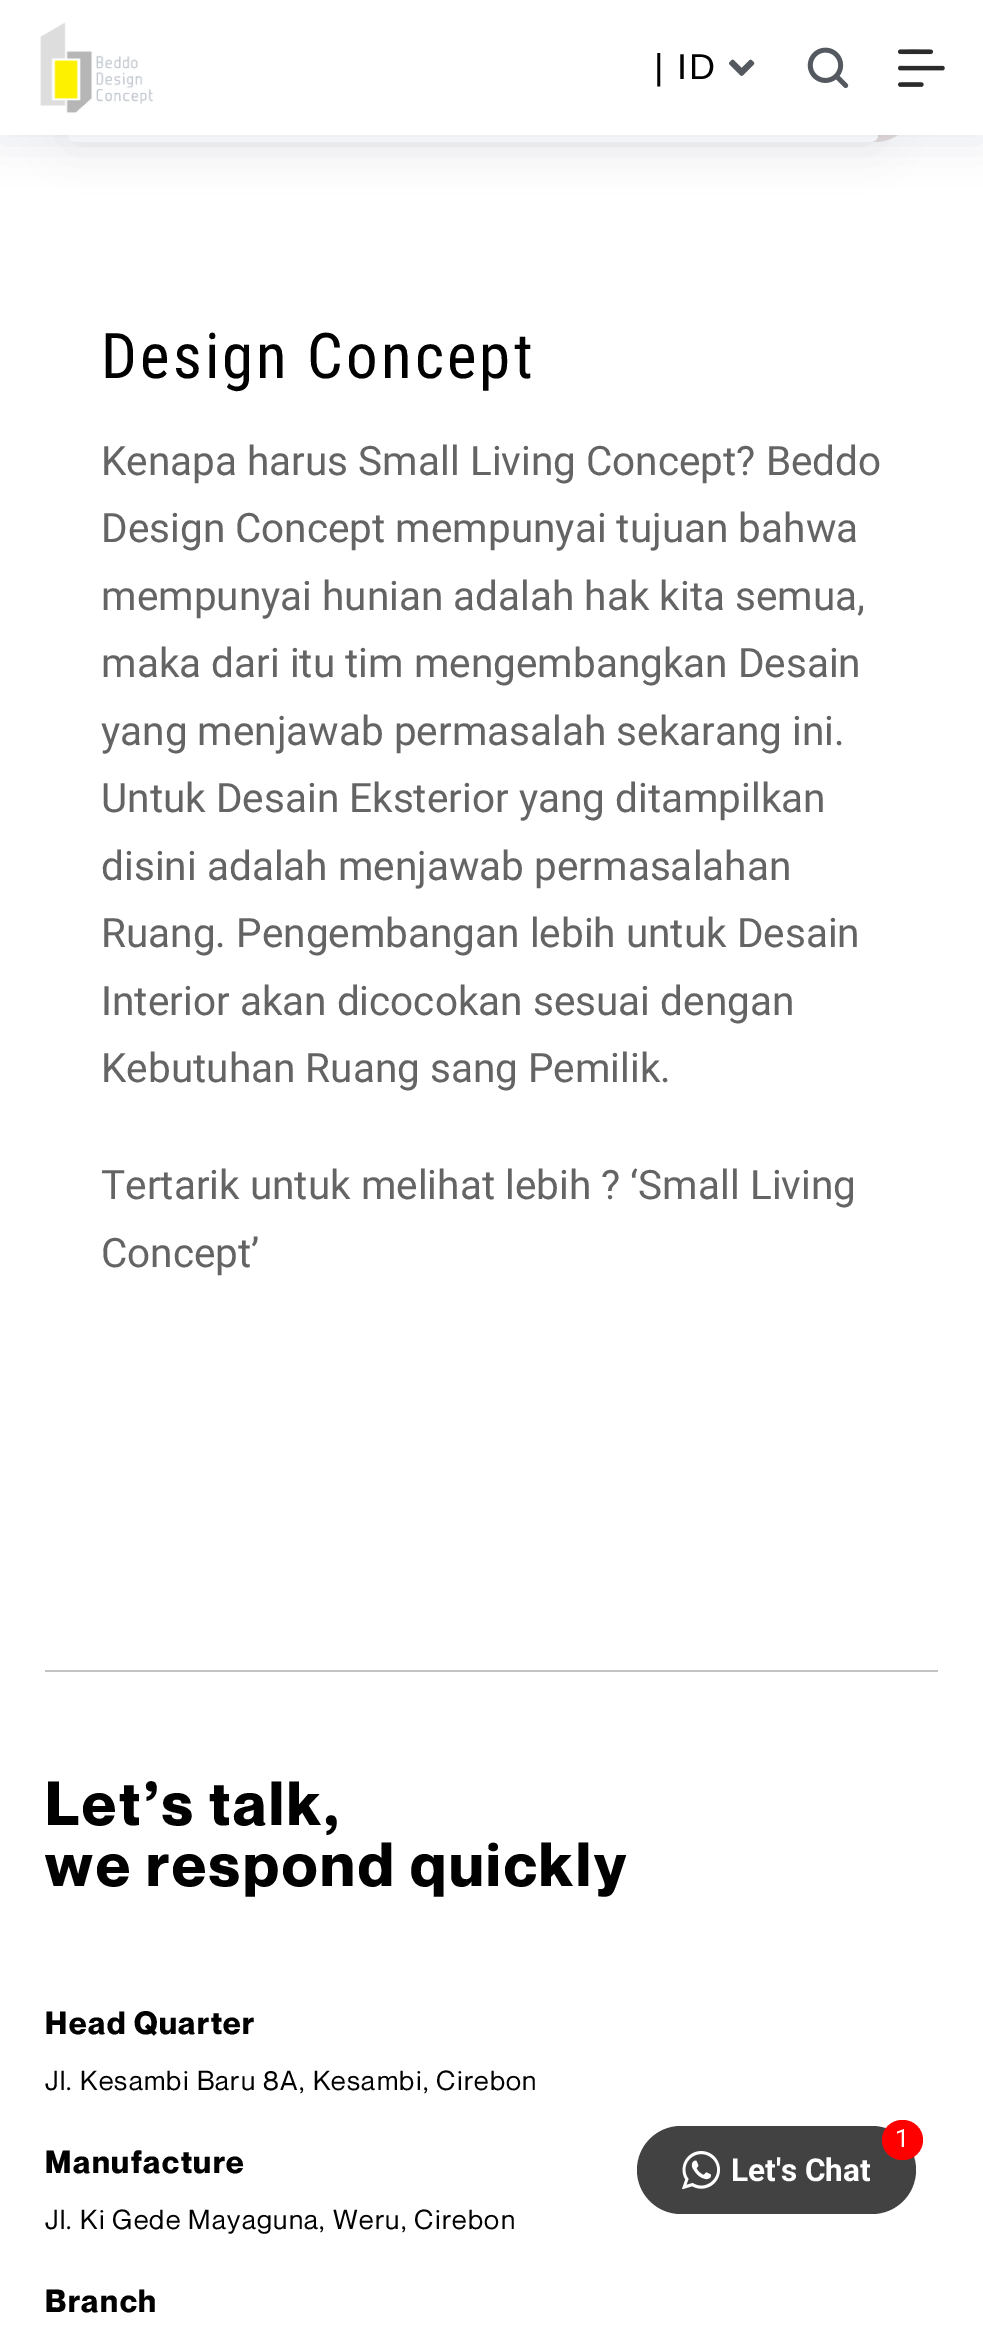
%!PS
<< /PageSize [983 2325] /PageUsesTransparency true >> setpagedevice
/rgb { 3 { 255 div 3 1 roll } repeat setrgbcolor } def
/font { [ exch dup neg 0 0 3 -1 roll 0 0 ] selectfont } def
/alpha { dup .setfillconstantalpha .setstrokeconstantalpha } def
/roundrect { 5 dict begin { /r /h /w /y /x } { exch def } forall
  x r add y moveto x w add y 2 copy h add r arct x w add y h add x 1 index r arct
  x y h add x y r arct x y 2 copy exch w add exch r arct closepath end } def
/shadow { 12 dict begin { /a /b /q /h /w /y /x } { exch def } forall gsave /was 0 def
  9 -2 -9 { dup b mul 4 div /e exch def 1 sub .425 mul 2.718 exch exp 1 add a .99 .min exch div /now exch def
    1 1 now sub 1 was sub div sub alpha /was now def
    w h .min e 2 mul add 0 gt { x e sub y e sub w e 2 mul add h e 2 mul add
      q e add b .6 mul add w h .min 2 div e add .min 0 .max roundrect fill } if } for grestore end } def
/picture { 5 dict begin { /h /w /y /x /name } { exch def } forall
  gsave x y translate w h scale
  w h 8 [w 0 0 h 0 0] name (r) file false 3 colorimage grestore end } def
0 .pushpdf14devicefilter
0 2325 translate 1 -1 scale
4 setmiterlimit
255 255 255 rgb
0 0 983 2325 rectfill
233 226 226 rgb
68 -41 848 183 41 roundrect fill
0 0 0 rgb
68 -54 810 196 7 23.5 0.07 shadow
255 255 255 rgb
68 -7 810 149 7 roundrect fill
2 21 78 rgb
0 7 983 135 0 20 0.09 shadow
255 255 255 rgb
0 0 983 135 rectfill
(img/1.rgb) 40 22 113 91 picture
(img/2.rgb) 729 59 26 17 picture
(img/3.rgb) 807 47 42 42 picture
(img/4.rgb) 898 49 47 38 picture
196 194 194 rgb
45 1670 893 2 rectfill
66 66 66 rgb
637 2126 279 88 44 roundrect fill
255 0 0 rgb
882 2120 41 40 20 roundrect fill
(img/5.rgb) 682 2151 38 38 picture
/LiberationSans-Regular 36 font
1 1 1 rgb
654 79 moveto 2 0 (| ID) ashow
/RobotoCondensed-Regular 63 font
101 378 moveto 3.1 0 (Design Concept) ashow
/Roboto-Regular 40.5 font
100 100 100 rgb
[
  [(Kenapa harus Small Living Concept? Beddo) 101 475]
  [(Design Concept mempunyai tujuan bahwa) 101 542]
  [(mempunyai hunian adalah hak kita semua,) 101 610]
  [(maka dari itu tim mengembangkan Desain) 101 677]
  [(yang menjawab permasalah sekarang ini.) 101 745]
  [(Untuk Desain Eksterior yang ditampilkan) 101 812]
  [(disini adalah menjawab permasalahan) 101 880]
  [(Ruang. Pengembangan lebih untuk Desain) 101 947]
  [(Interior akan dicocokan sesuai dengan) 101 1015]
  [(Kebutuhan Ruang sang Pemilik.) 101 1082]
  [(Tertarik untuk melihat lebih ? ‘Small Living) 101 1199]
  [(Concept’) 101 1267]
] { aload pop moveto show } forall
/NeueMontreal-Bold 60.75 font
1 1 1 rgb
45 1825 moveto 3 0 (Let’s talk,) ashow
45 1886 moveto 3 0 (we respond quickly) ashow
/NeueMontreal-Bold 31.5 font
45 2034 moveto 1.5 0 (Head Quarter) ashow
/NeueMontreal-Regular 27 font
45 2090 moveto 1.35 0 (Jl. Kesambi Baru 8A, Kesambi, Cirebon) ashow
/NeueMontreal-Bold 31.5 font
45 2173 moveto 1.5 0 (Manufacture) ashow
/NeueMontreal-Regular 27 font
45 2229 moveto 1.35 0 (Jl. Ki Gede Mayaguna, Weru, Cirebon) ashow
/NeueMontreal-Bold 31.5 font
45 2312 moveto 1.5 0 (Branch) ashow
/Roboto-Regular 25 font
255 255 255 rgb
895 2147 moveto (1) show
/Roboto-Bold 31.5 font
731 2181 moveto (Let's Chat) show
.poppdf14devicefilter showpage
